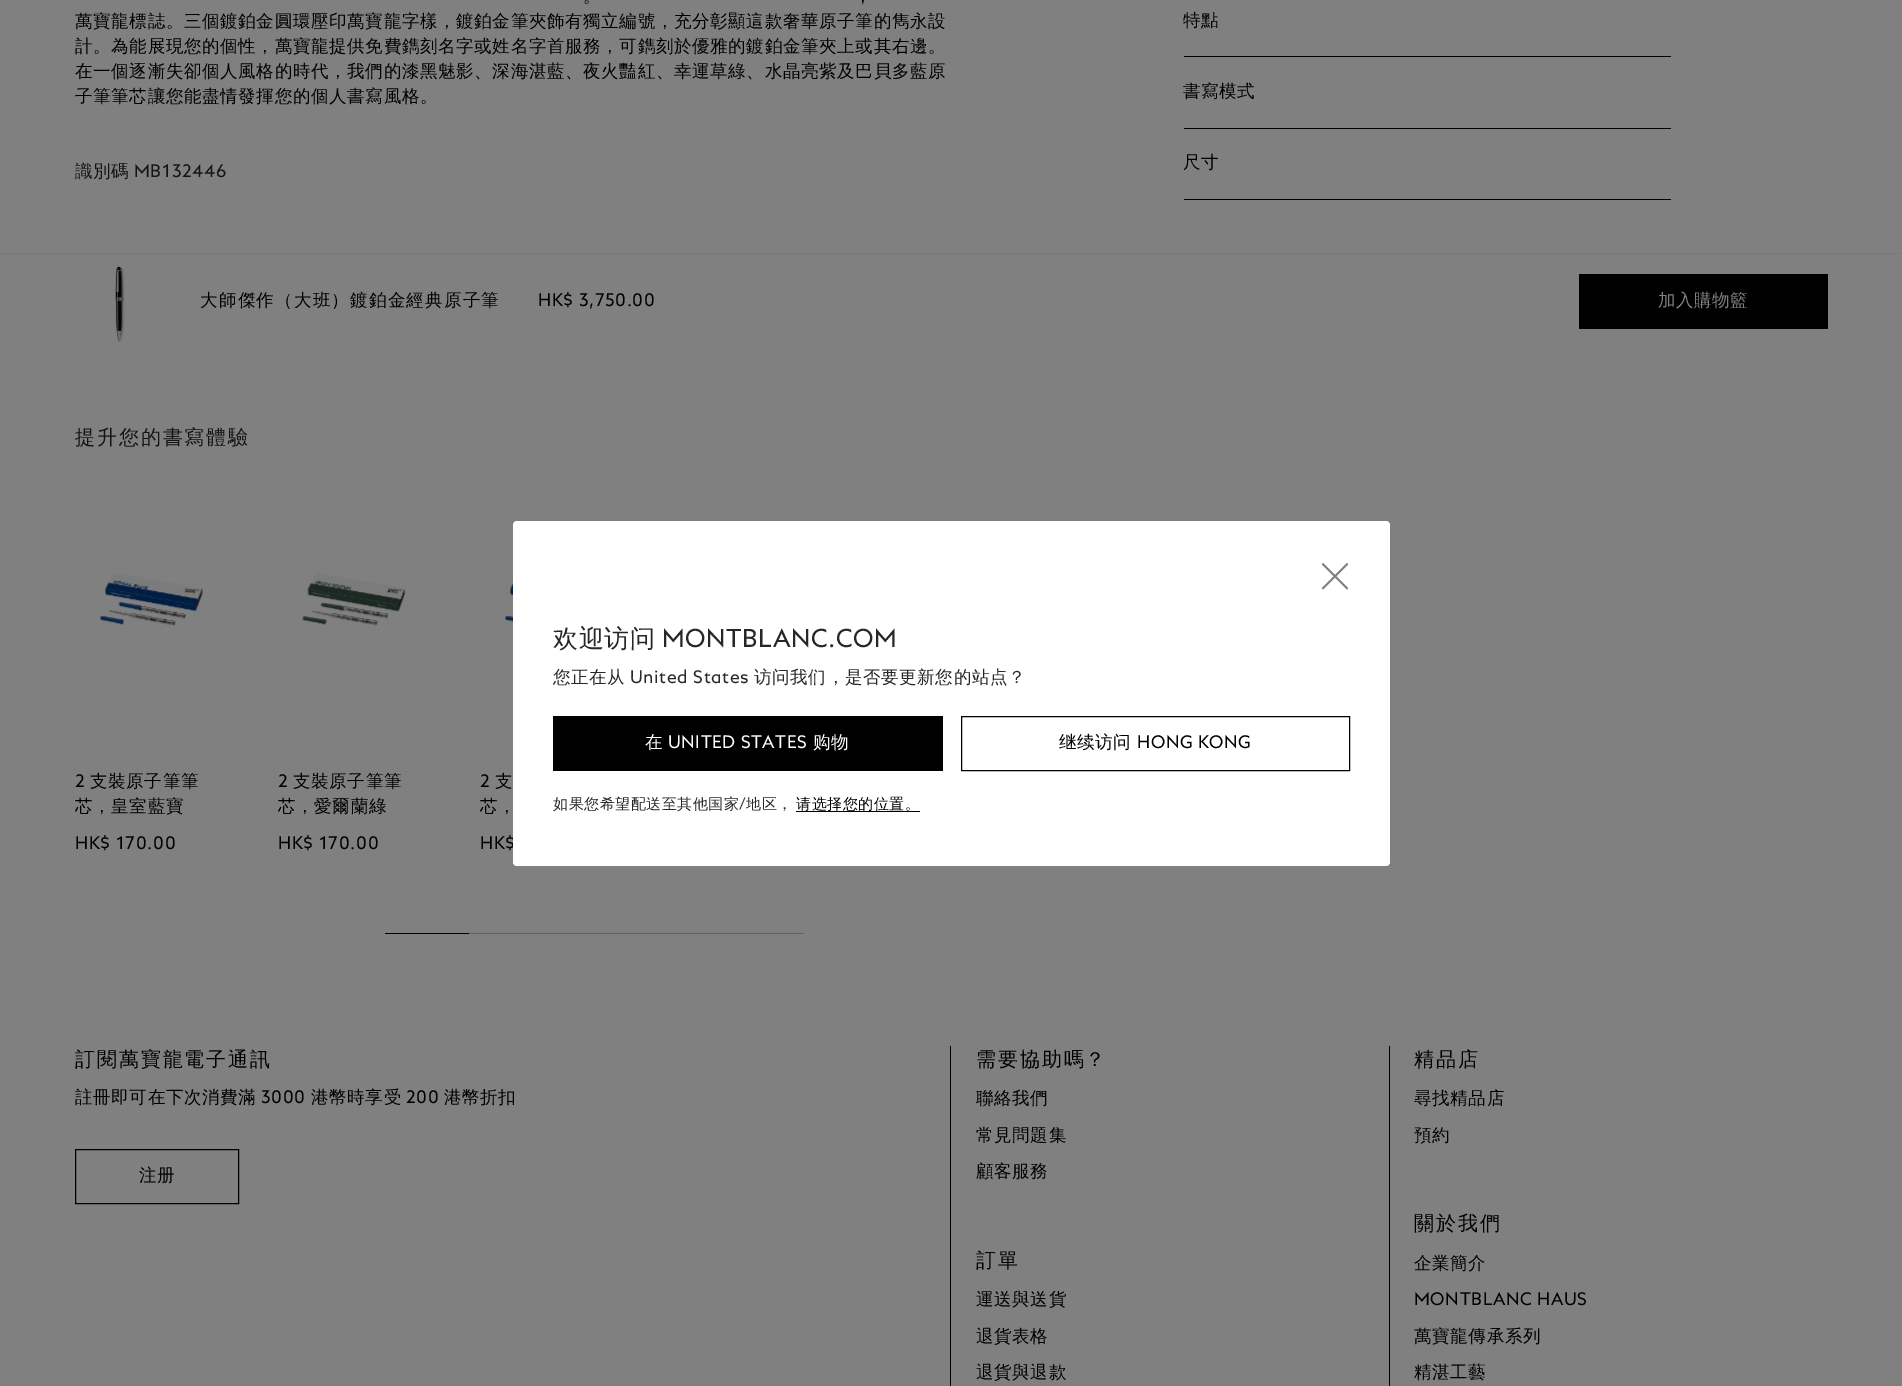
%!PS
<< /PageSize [1902 1386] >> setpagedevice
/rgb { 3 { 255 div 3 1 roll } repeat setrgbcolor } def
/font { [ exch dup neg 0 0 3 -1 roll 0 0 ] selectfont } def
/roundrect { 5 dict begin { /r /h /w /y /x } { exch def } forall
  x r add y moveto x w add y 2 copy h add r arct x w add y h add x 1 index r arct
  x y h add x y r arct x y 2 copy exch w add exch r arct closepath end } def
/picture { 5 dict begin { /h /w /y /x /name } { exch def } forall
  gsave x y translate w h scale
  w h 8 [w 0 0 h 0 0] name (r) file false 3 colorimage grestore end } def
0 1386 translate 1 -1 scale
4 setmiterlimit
128 128 128 rgb
0 0 1902 1386 rectfill
[
  [1184 56 487 1 0 0 0]
  [1184 128 487 1 0 0 0]
  [1184 199 487 1 0 0 0]
  [0 253 1902 1 121 121 121]
] { aload pop rgb rectfill } forall
(img/1.rgb) 115 266 10 76 picture
0 0 0 rgb
1579 274 249 55 rectfill
(img/2.rgb) 99 573 104 53 picture
(img/3.rgb) 302 573 104 53 picture
(img/4.rgb) 504 583 9 39 picture
[
  [385 933 84 1 0 0 0]
  [469 933 335 1 97 97 97]
  [950 1046 1 340 0 0 0]
] { aload pop rgb rectfill } forall
75.5 1149.5 163 54 rectstroke
1389 1046 1 340 rectfill
/WenQuanYiZenHei-Medium 17.5 font
583 2 moveto 0.65 0 (。) ashow
854 2 moveto 0.65 0 (，) ashow
75 27 moveto 0.65 0 (萬寶龍標誌。三個鍍鉑金圓環壓印萬寶龍字樣，鍍鉑金筆夾飾有獨立編號，充分彰顯這款奢華原子筆的雋永設) ashow
75 52 moveto 0.65 0 (計。為能展現您的個性，萬寶龍提供免費鐫刻名字或姓名字首服務，可鐫刻於優雅的鍍鉑金筆夾上或其右邊。) ashow
75 77 moveto 0.65 0 (在一個逐漸失卻個人風格的時代，我們的漆黑魅影、深海湛藍、夜火豔紅、幸運草綠、水晶亮紫及巴貝多藍原) ashow
75 102 moveto 0.65 0 (子筆筆芯讓您能盡情發揮您的個人書寫風格。) ashow
20 20 20 rgb
75 177 moveto 0.65 0 (識別碼) ashow
/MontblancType-Regular 17.5 font
134 177 moveto 0.65 0 (MB132446) ashow
/WenQuanYiZenHei-Medium 17.5 font
0 0 0 rgb
1183 26 moveto 0.6 0 (特點) ashow
1183 97 moveto 0.6 0 (書寫模式) ashow
1183 168 moveto 0.6 0 (尺寸) ashow
200 306 moveto 1.25 0 (大師傑作（大班）鍍鉑金經典原子筆) ashow
/MontblancType-Regular 17.5 font
538 306 moveto 0.6 0 (HK$ 3,750.00) ashow
/WenQuanYiZenHei-Medium 17.5 font
128 128 128 rgb
1658 306 moveto 0.6 0 (加入購物籃) ashow
/WenQuanYiZenHei-Medium 20 font
20 20 20 rgb
75 444 moveto 1.9 0 (提升您的書寫體驗) ashow
/MontblancType-Regular 17.5 font
0 0 0 rgb
75 787 moveto 0.65 0 (2) ashow
/WenQuanYiZenHei-Medium 17.5 font
90 787 moveto 0.65 0 (支裝原子筆筆) ashow
75 812 moveto 0.65 0 (芯，皇室藍寶) ashow
/MontblancType-Regular 17.5 font
75 849 moveto 0.65 0 (HK$ 170.00) ashow
278 787 moveto 0.65 0 (2) ashow
/WenQuanYiZenHei-Medium 17.5 font
293 787 moveto 0.65 0 (支裝原子筆筆) ashow
278 812 moveto 0.65 0 (芯，愛爾蘭綠) ashow
/MontblancType-Regular 17.5 font
278 849 moveto 0.65 0 (HK$ 170.00) ashow
480 787 moveto 0.65 0 (2) ashow
/WenQuanYiZenHei-Medium 17.5 font
495 787 moveto 0.65 0 (支) ashow
480 812 moveto 0.65 0 (芯，) ashow
/MontblancType-Regular 17.5 font
480 849 moveto 0.65 0 (HK$) ashow
255 255 255 rgb
513 521 877 345 4 roundrect fill
(img/5.rgb) 1321 563 28 27 picture
/WenQuanYiZenHei-Medium 25 font
39 39 39 rgb
553 647 moveto 0.6 0 (欢迎访问) ashow
/MontblancType-Regular 25 font
662 647 moveto 0.6 0 (MONTBLANC.COM) ashow
/WenQuanYiZenHei-Medium 17.5 font
553 683 moveto 0.65 0 (您正在从) ashow
/MontblancType-Regular 17.5 font
630 683 moveto 0.65 0 (United States) ashow
/WenQuanYiZenHei-Medium 17.5 font
754 683 moveto 0.65 0 (访问我们，是否要更新您的站点？) ashow
0 0 0 rgb
553 716 390 55 rectfill
255 255 255 rgb
645 748 moveto 0.6 0 (在) ashow
/MontblancType-Regular 17.5 font
668 748 moveto 0.6 0 (UNITED STATES) ashow
/WenQuanYiZenHei-Medium 17.5 font
813 748 moveto 0.6 0 (购物) ashow
0 0 0 rgb
961.5 716.5 388 54 rectstroke
1059 748 moveto 0.6 0 (继续访问) ashow
/MontblancType-Regular 17.5 font
1137 748 moveto 0.6 0 (HONG KONG) ashow
/WenQuanYiZenHei-Medium 15 font
39 39 39 rgb
553 809 moveto 0.5 0 (如果您希望配送至其他国家) ashow
/MontblancType-Regular 15 font
739 809 moveto 0.5 0 (/) ashow
/WenQuanYiZenHei-Medium 15 font
746 809 moveto 0.5 0 (地区，) ashow
0 0 0 rgb
796 811 124 1 rectfill
796 809 moveto 0.5 0 (请选择您的位置。) ashow
/WenQuanYiZenHei-Medium 20 font
75 1066 moveto 1.9 0 (訂閱萬寶龍電子通訊) ashow
/WenQuanYiZenHei-Medium 17.5 font
75 1103 moveto 0.65 0 (註冊即可在下次消費滿) ashow
/MontblancType-Regular 17.5 font
261 1103 moveto 0.65 0 (3000) ashow
/WenQuanYiZenHei-Medium 17.5 font
311 1103 moveto 0.65 0 (港幣時享受) ashow
/MontblancType-Regular 17.5 font
406 1103 moveto 0.65 0 (200) ashow
/WenQuanYiZenHei-Medium 17.5 font
444 1103 moveto 0.65 0 (港幣折扣) ashow
139 1181 moveto 0.6 0 (注册) ashow
/WenQuanYiZenHei-Medium 20 font
976 1066 moveto 1.9 0 (需要協助嗎？) ashow
/WenQuanYiZenHei-Medium 17.5 font
976 1104 moveto 0.65 0 (聯絡我們) ashow
976 1141 moveto 0.65 0 (常見問題集) ashow
976 1177 moveto 0.65 0 (顧客服務) ashow
/WenQuanYiZenHei-Medium 20 font
976 1267 moveto 1.9 0 (訂單) ashow
/WenQuanYiZenHei-Medium 17.5 font
976 1305 moveto 0.65 0 (運送與送貨) ashow
976 1342 moveto 0.65 0 (退貨表格) ashow
976 1378 moveto 0.65 0 (退貨與退款) ashow
/WenQuanYiZenHei-Medium 20 font
1414 1066 moveto 1.9 0 (精品店) ashow
/WenQuanYiZenHei-Medium 17.5 font
1414 1104 moveto 0.65 0 (尋找精品店) ashow
1414 1141 moveto 0.65 0 (預約) ashow
/WenQuanYiZenHei-Medium 20 font
1414 1230 moveto 1.9 0 (關於我們) ashow
/WenQuanYiZenHei-Medium 17.5 font
1414 1269 moveto 0.65 0 (企業簡介) ashow
/MontblancType-Regular 17.5 font
1414 1305 moveto 0.65 0 (MONTBLANC HAUS) ashow
/WenQuanYiZenHei-Medium 17.5 font
1414 1342 moveto 0.65 0 (萬寶龍傳承系列) ashow
1414 1378 moveto 0.65 0 (精湛工藝) ashow
showpage
